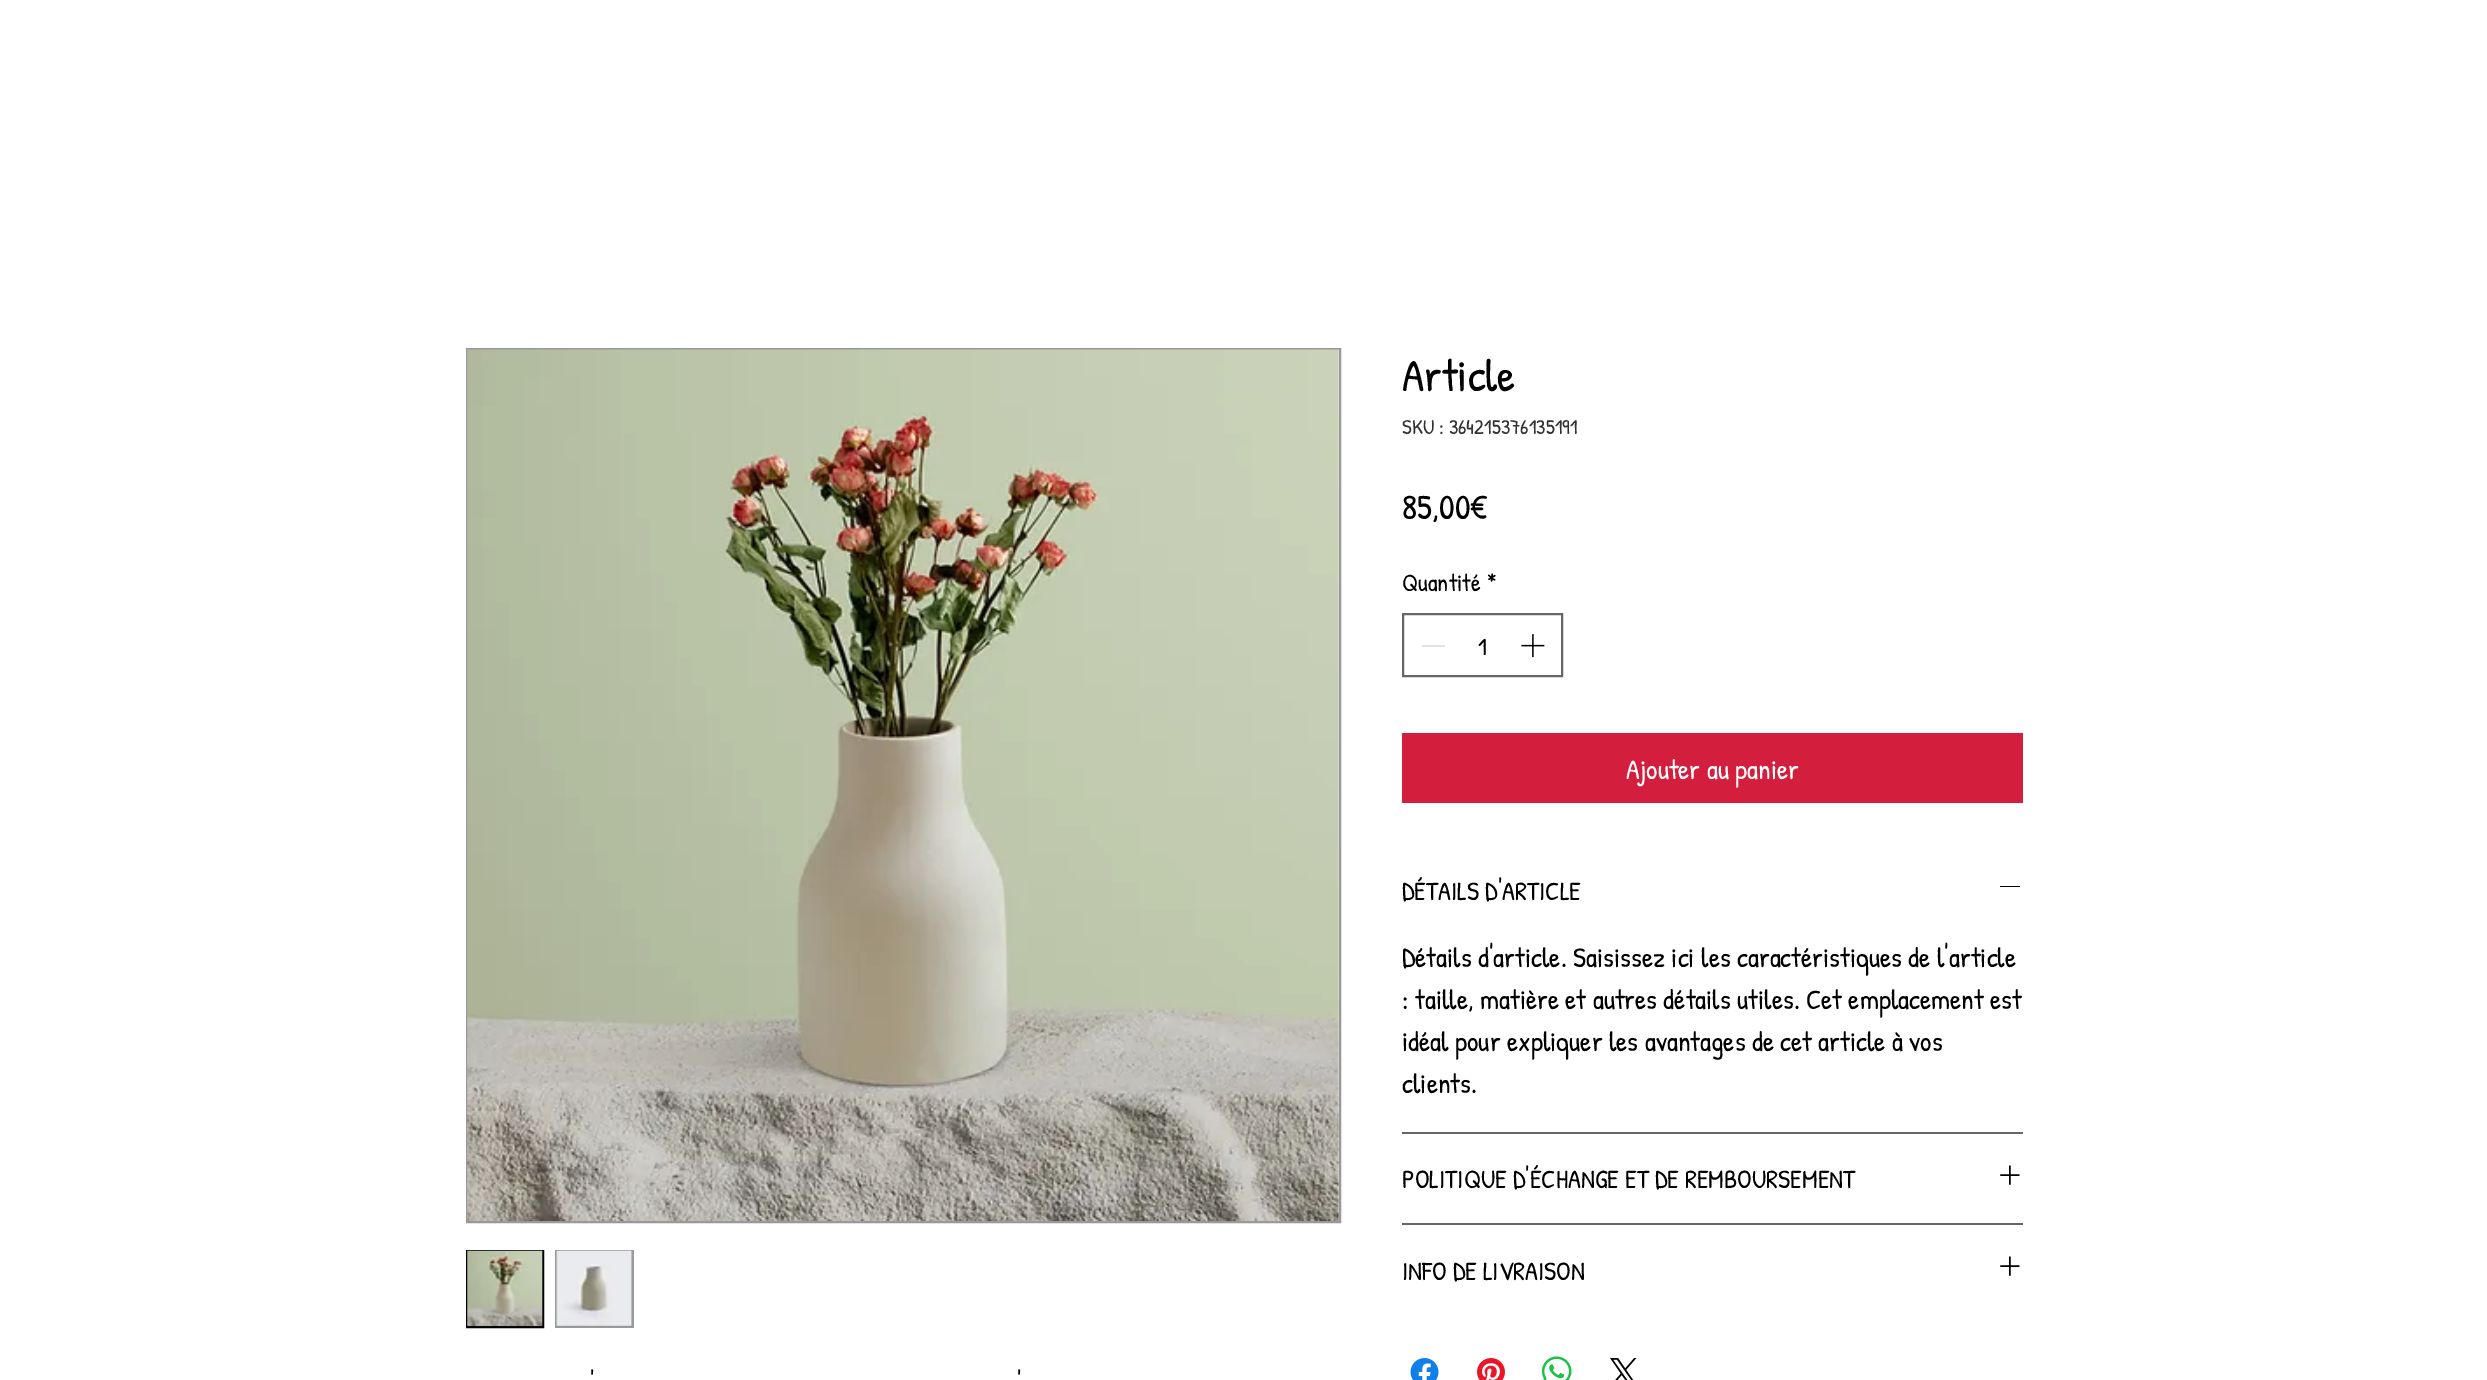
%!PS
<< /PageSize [2487 1380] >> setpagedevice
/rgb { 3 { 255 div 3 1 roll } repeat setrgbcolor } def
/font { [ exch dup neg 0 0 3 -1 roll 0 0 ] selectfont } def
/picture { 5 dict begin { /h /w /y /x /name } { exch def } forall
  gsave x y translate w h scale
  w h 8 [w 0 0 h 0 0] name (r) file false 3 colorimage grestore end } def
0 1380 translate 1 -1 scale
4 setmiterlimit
255 255 255 rgb
0 0 2487 1380 rectfill
102 102 102 rgb
2 setlinewidth
1403 614 159 62 rectstroke
227 227 227 rgb
1422 645 23 2 rectfill
(img/1.rgb) 1521 634 24 24 picture
[
  [1402 733 621 70 211 31 61]
  [1402 1132 621 2 102 102 102]
  [2000 886 20 1 0 0 0]
  [1402 1223 621 2 102 102 102]
] { aload pop rgb rectfill } forall
(img/2.rgb) 2000 1165 20 20 picture
(img/2.rgb) 2000 1256 20 20 picture
(img/3.rgb) 1410 1358 29 22 picture
(img/4.rgb) 1477 1358 28 22 picture
(img/5.rgb) 1541 1356 31 24 picture
(img/6.rgb) 1610 1358 27 22 picture
153 153 153 rgb
467 349 873 873 rectstroke
(img/7.rgb) 467 349 872 872 picture
0 0 0 rgb
467 1251 76 76 rectstroke
(img/8.rgb) 467 1250 76 77 picture
153 153 153 rgb
555 1250 79 78 rectfill
(img/9.rgb) 556 1250 77 76 picture
/PatrickHand-Regular 45.5 font
0 0 0 rgb
1402 391 moveto (Article) show
/PatrickHand-Regular 21 font
51 51 51 rgb
1402 434 moveto (SKU : 364215376135191) show
/PatrickHand-Regular 35 font
0 0 0 rgb
1402 519 moveto (85,00€) show
/PatrickHand-Regular 24.5 font
[
  [(Quantité) 1402 591]
  [(*) 1487 591]
  [(1) 1478 655]
] { aload pop moveto show } forall
/PatrickHand-Regular 28 font
255 255 255 rgb
1626 779 moveto (Ajouter au panier) show
/PatrickHand-Regular 26.25 font
0 0 0 rgb
1402 900 moveto (DÉTAILS D'ARTICLE) show
/PatrickHand-Regular 28 font
[
  [(Détails d'article. Saisissez ici les caractéristiques de l'article) 1402 967]
  [(: taille, matière et autres détails utiles. Cet emplacement est) 1402 1009]
  [(idéal pour expliquer les avantages de cet article à vos) 1402 1051]
  [(clients.) 1402 1093]
] { aload pop moveto show } forall
/PatrickHand-Regular 26.25 font
[
  [(POLITIQUE D'ÉCHANGE ET DE REMBOURSEMENT) 1402 1188]
  [(INFO DE LIVRAISON) 1402 1280]
  [(') 590 1392]
  [(') 1017 1392]
] { aload pop moveto show } forall
showpage
